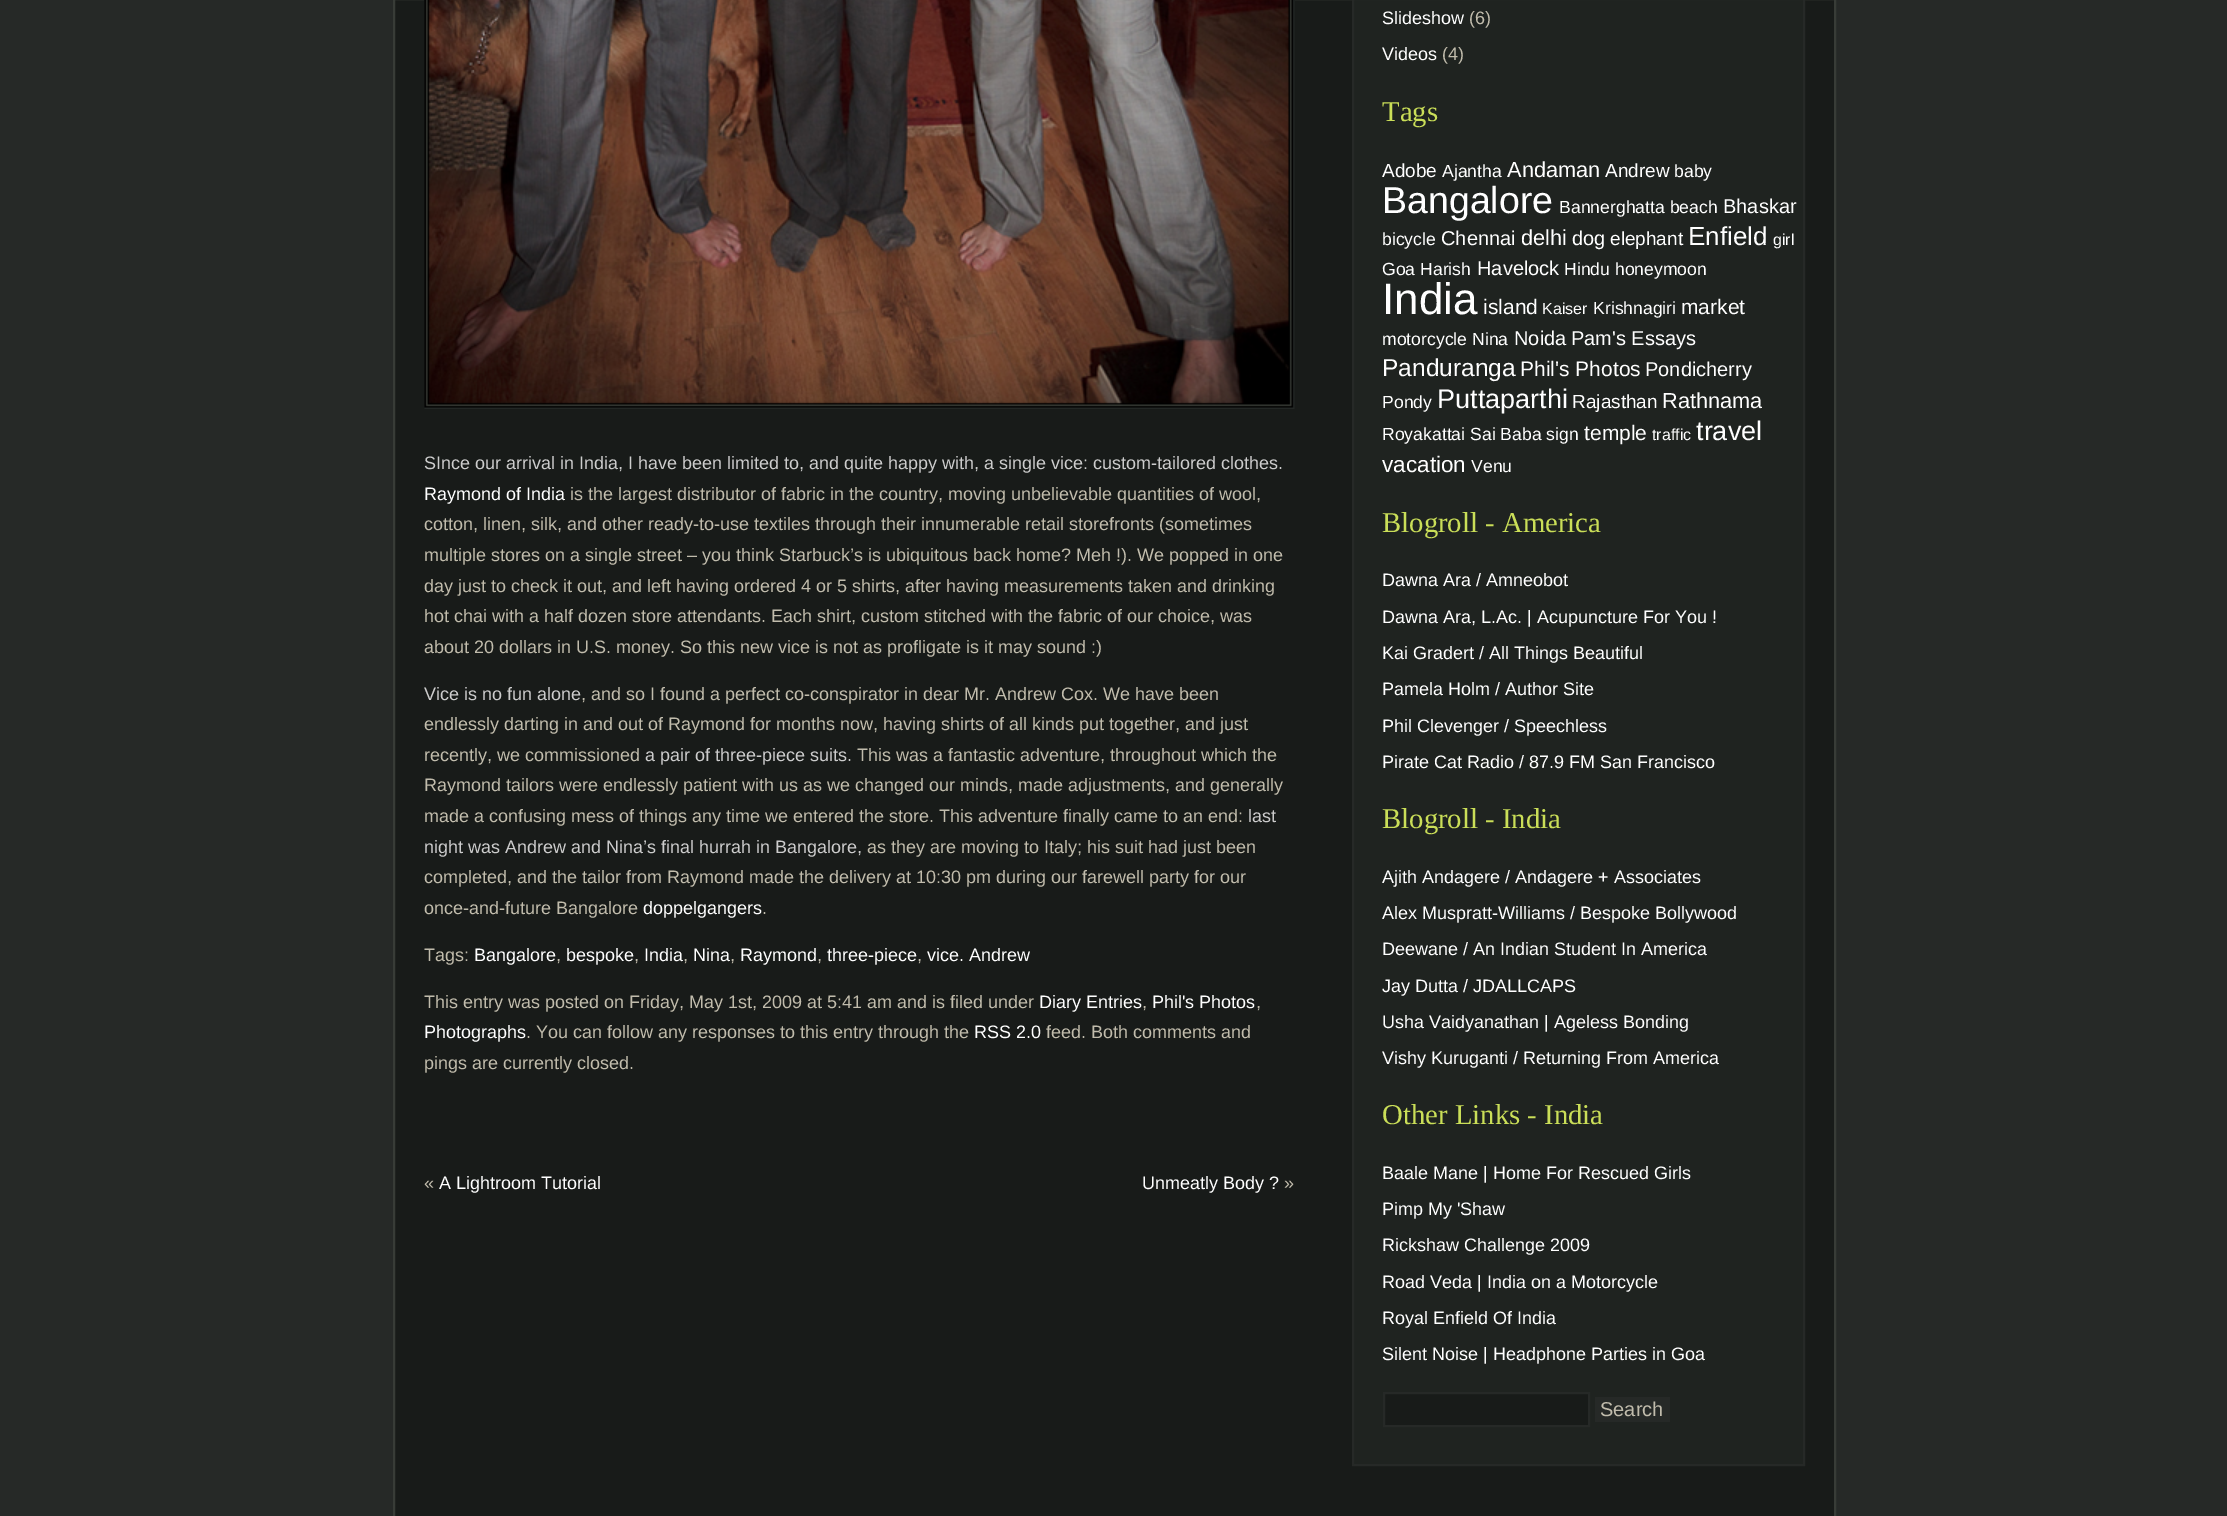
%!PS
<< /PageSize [2227 1516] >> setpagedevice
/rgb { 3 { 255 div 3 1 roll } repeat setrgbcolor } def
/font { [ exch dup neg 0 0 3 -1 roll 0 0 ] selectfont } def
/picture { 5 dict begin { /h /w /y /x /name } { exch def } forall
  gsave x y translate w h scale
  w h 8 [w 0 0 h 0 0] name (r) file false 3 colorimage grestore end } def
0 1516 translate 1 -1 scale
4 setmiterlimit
38 41 39 rgb
0 0 2227 1516 rectfill
24 27 25 rgb
394 -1 moveto 1835 -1 lineto 1835 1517 lineto 394 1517 lineto closepath gsave fill grestore
56 60 55 rgb
2 setlinewidth
stroke
(img/1.rgb) 424 0 871 409 picture
31 35 32 rgb
1353 -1 moveto 1804 -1 lineto 1804 1465 lineto 1353 1465 lineto closepath gsave fill grestore
38 41 39 rgb
stroke
24 27 25 rgb
1384 1393 moveto 1589 1393 lineto 1589 1426 lineto 1384 1426 lineto closepath gsave fill grestore
38 41 39 rgb
stroke
1595 1397 75 25 rectfill
/LiberationSans-Regular 18 font
204 204 204 rgb
424 469 moveto (SInce our arrival in India, I have been limited to, and quite happy with, a single vice: custom-tailored clothes.) show
255 255 255 rgb
424 500 moveto (Raymond of India) show
193 188 172 rgb
[
  [(is the largest distributor of fabric in the country, moving unbelievable quantities of wool,) 570 500]
  [(cotton, linen, silk, and other ready-to-use textiles through their innumerable retail storefronts \(sometimes) 424 530]
  [(multiple stores on a single street – you think Starbuck’s is ubiquitous back home? Meh !\). We popped in one) 424 561]
  [(day just to check it out, and left having ordered 4 or 5 shirts, after having measurements taken and drinking) 424 592]
  [(hot chai with a half dozen store attendants. Each shirt, custom stitched with the fabric of our choice, was) 424 622]
  [(about 20 dollars in U.S. money. So this new vice is not as profligate is it may sound :\)) 424 653]
] { aload pop moveto show } forall
204 204 204 rgb
424 700 moveto (Vice is no fun alone) show
193 188 172 rgb
[
  [(, and so I found a perfect co-conspirator in dear Mr. Andrew Cox. We have been) 581 700]
  [(endlessly darting in and out of Raymond for months now, having shirts of all kinds put together, and just) 424 730]
  [(recently, we commissioned) 424 761]
] { aload pop moveto show } forall
204 204 204 rgb
645 761 moveto (a pair of three-piece suits.) show
193 188 172 rgb
[
  [(This was a fantastic adventure, throughout which the) 857 761]
  [(Raymond tailors were endlessly patient with us as we changed our minds, made adjustments, and generally) 424 791]
  [(made a confusing mess of things any time we entered the store. This adventure finally came to an end:) 424 822]
] { aload pop moveto show } forall
204 204 204 rgb
1248 822 moveto (last) show
424 853 moveto (night was Andrew and Nina’s final hurrah in Bangalore,) show
193 188 172 rgb
[
  [(as they are moving to Italy; his suit had just been) 867 853]
  [(completed, and the tailor from Raymond made the delivery at 10:30 pm during our farewell party for our) 424 883]
  [(once-and-future Bangalore) 424 914]
] { aload pop moveto show } forall
255 255 255 rgb
643 914 moveto (doppelgangers) show
193 188 172 rgb
762 914 moveto (.) show
424 961 moveto (Tags:) show
255 255 255 rgb
474 961 moveto (Bangalore) show
193 188 172 rgb
556 961 moveto (,) show
255 255 255 rgb
566 961 moveto (bespoke) show
193 188 172 rgb
634 961 moveto (,) show
255 255 255 rgb
644 961 moveto (India) show
193 188 172 rgb
683 961 moveto (,) show
255 255 255 rgb
693 961 moveto (Nina) show
193 188 172 rgb
730 961 moveto (,) show
255 255 255 rgb
740 961 moveto (Raymond) show
193 188 172 rgb
817 961 moveto (,) show
255 255 255 rgb
827 961 moveto (three-piece) show
193 188 172 rgb
917 961 moveto (,) show
255 255 255 rgb
927 961 moveto (vice. Andrew) show
193 188 172 rgb
424 1008 moveto (This entry was posted on Friday, May 1st, 2009 at 5:41 am and is filed under) show
255 255 255 rgb
1039 1008 moveto (Diary Entries) show
193 188 172 rgb
1142 1008 moveto (,) show
255 255 255 rgb
1152 1008 moveto (Phil's Photos) show
193 188 172 rgb
1256 1008 moveto (,) show
255 255 255 rgb
424 1038 moveto (Photographs) show
193 188 172 rgb
526 1038 moveto (. You can follow any responses to this entry through the) show
255 255 255 rgb
974 1038 moveto (RSS 2.0) show
193 188 172 rgb
[
  [(feed. Both comments and) 1046 1038]
  [(pings are currently closed.) 424 1069]
  [(«) 424 1189]
] { aload pop moveto show } forall
255 255 255 rgb
439 1189 moveto (A Lightroom Tutorial) show
1142 1189 moveto (Unmeatly Body ?) show
193 188 172 rgb
1284 1189 moveto (») show
255 255 255 rgb
1382 24 moveto (Slideshow) show
193 188 172 rgb
1469 24 moveto (\(6\)) show
255 255 255 rgb
1382 60 moveto (Videos) show
193 188 172 rgb
1442 60 moveto (\(4\)) show
/LiberationSerif-Regular 28.75 font
202 222 88 rgb
1382 121 moveto (Tags) show
/LiberationSans-Regular 19 font
255 255 255 rgb
1382 177 moveto (Adobe) show
/LiberationSans-Regular 17.6 font
1442 177 moveto (Ajantha) show
/LiberationSans-Regular 21.75 font
1507 177 moveto (Andaman) show
/LiberationSans-Regular 19 font
1605 177 moveto (Andrew) show
/LiberationSans-Regular 17.6 font
1674 177 moveto (baby) show
/LiberationSans-Regular 37.5 font
1382 213 moveto (Bangalore) show
/LiberationSans-Regular 17.6 font
1559 213 moveto (Bannerghatta beach) show
/LiberationSans-Regular 20 font
1723 213 moveto (Bhaskar) show
/LiberationSans-Regular 17.6 font
1382 245 moveto (bicycle) show
/LiberationSans-Regular 20 font
1441 245 moveto (Chennai) show
/LiberationSans-Regular 21.75 font
1521 245 moveto (delhi) show
/LiberationSans-Regular 20 font
1572 245 moveto (dog) show
/LiberationSans-Regular 19 font
1610 245 moveto (elephant) show
/LiberationSans-Regular 26 font
1688 245 moveto (Enfield) show
/LiberationSans-Regular 16 font
1773 245 moveto (girl) show
/LiberationSans-Regular 17.6 font
1382 275 moveto (Goa Harish) show
/LiberationSans-Regular 20 font
1477 275 moveto (Havelock) show
/LiberationSans-Regular 17.6 font
1564 275 moveto (Hindu honeymoon) show
/LiberationSans-Regular 44 font
1382 314 moveto (India) show
/LiberationSans-Regular 21 font
1483 314 moveto (island) show
/LiberationSans-Regular 16 font
1542 314 moveto (Kaiser) show
/LiberationSans-Regular 17.6 font
1593 314 moveto (Krishnagiri) show
/LiberationSans-Regular 21 font
1681 314 moveto (market) show
/LiberationSans-Regular 17.6 font
1382 345 moveto (motorcycle Nina) show
/LiberationSans-Regular 20 font
1514 345 moveto (Noida) show
1571 345 moveto (Pam's Essays) show
/LiberationSans-Regular 24.5 font
1382 376 moveto (Panduranga) show
/LiberationSans-Regular 21 font
1520 376 moveto (Phil's Photos) show
/LiberationSans-Regular 20 font
1645 376 moveto (Pondicherry) show
/LiberationSans-Regular 17.6 font
1382 408 moveto (Pondy) show
/LiberationSans-Regular 27 font
1437 408 moveto (Puttaparthi) show
/LiberationSans-Regular 19 font
1572 408 moveto (Rajasthan) show
/LiberationSans-Regular 21.75 font
1662 408 moveto (Rathnama) show
/LiberationSans-Regular 17.6 font
1382 440 moveto (Royakattai Sai Baba sign) show
/LiberationSans-Regular 21 font
1584 440 moveto (temple) show
/LiberationSans-Regular 16 font
1652 440 moveto (traffic) show
/LiberationSans-Regular 27 font
1696 440 moveto (travel) show
/LiberationSans-Regular 22.5 font
1382 472 moveto (vacation) show
/LiberationSans-Regular 17.6 font
1471 472 moveto (Venu) show
/LiberationSerif-Regular 28.75 font
202 222 88 rgb
1382 532 moveto (Blogroll - America) show
/LiberationSans-Regular 18 font
255 255 255 rgb
[
  [(Dawna Ara / Amneobot) 1382 586]
  [(Dawna Ara, L.Ac. | Acupuncture For You !) 1382 623]
  [(Kai Gradert / All Things Beautiful) 1382 659]
  [(Pamela Holm / Author Site) 1382 695]
  [(Phil Clevenger / Speechless) 1382 732]
  [(Pirate Cat Radio / 87.9 FM San Francisco) 1382 768]
] { aload pop moveto show } forall
/LiberationSerif-Regular 28.75 font
202 222 88 rgb
1382 828 moveto (Blogroll - India) show
/LiberationSans-Regular 18 font
255 255 255 rgb
[
  [(Ajith Andagere / Andagere + Associates) 1382 883]
  [(Alex Muspratt-Williams / Bespoke Bollywood) 1382 919]
  [(Deewane / An Indian Student In America) 1382 955]
  [(Jay Dutta / JDALLCAPS) 1382 992]
  [(Usha Vaidyanathan | Ageless Bonding) 1382 1028]
  [(Vishy Kuruganti / Returning From America) 1382 1064]
] { aload pop moveto show } forall
/LiberationSerif-Regular 28.75 font
202 222 88 rgb
1382 1124 moveto (Other Links - India) show
/LiberationSans-Regular 18 font
255 255 255 rgb
[
  [(Baale Mane | Home For Rescued Girls) 1382 1179]
  [(Pimp My 'Shaw) 1382 1215]
  [(Rickshaw Challenge 2009) 1382 1251]
  [(Road Veda | India on a Motorcycle) 1382 1288]
  [(Royal Enfield Of India) 1382 1324]
  [(Silent Noise | Headphone Parties in Goa) 1382 1360]
] { aload pop moveto show } forall
/LiberationSans-Regular 20 font
193 188 172 rgb
1600 1416 moveto (Search) show
showpage
